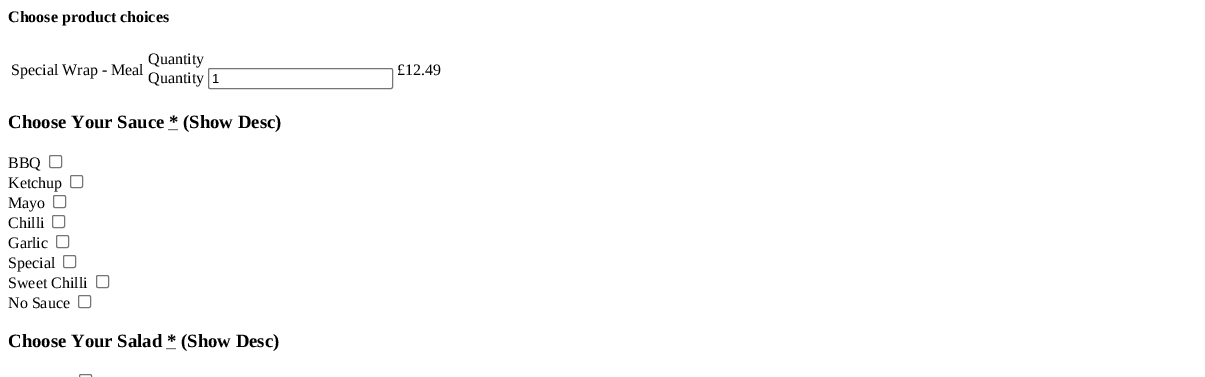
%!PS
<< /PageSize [1205 377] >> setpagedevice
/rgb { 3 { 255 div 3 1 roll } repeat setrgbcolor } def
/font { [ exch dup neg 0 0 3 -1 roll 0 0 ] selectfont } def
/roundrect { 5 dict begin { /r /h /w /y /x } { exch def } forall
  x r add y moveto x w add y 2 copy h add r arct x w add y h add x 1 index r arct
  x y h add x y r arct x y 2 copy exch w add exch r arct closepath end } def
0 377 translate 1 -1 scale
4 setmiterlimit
255 255 255 rgb
0 0 1205 377 rectfill
118 118 118 rgb
208.5 68.5 184 20 1.5 roundrect stroke
0 0 0 rgb
[1 1] 0 setdash
168.5 129.5 moveto 178 129.5 lineto stroke
118 118 118 rgb
[] 0 setdash
49.5 155.5 12 12 1.5 roundrect stroke
70.5 175.5 12 12 1.5 roundrect stroke
53.5 195.5 12 12 1.5 roundrect stroke
52.5 215.5 12 12 1.5 roundrect stroke
56.5 235.5 12 12 1.5 roundrect stroke
63.5 255.5 12 12 1.5 roundrect stroke
96.5 275.5 12 12 1.5 roundrect stroke
78.5 295.5 12 12 1.5 roundrect stroke
0 0 0 rgb
[1 1] 0 setdash
166.5 348.5 moveto 176 348.5 lineto stroke
118 118 118 rgb
[] 0 setdash
79.5 374.5 12 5 1.5 roundrect stroke
/LiberationSerif-Bold 16 font
0 0 0 rgb
8 22 moveto (Choose product choices) show
/LiberationSerif-Regular 16 font
[
  [(Special Wrap - Meal) 11 75]
  [(Quantity) 148 64]
  [(Quantity) 148 83]
] { aload pop moveto show } forall
/LiberationSans-Regular 13 font
212 83 moveto (1) show
/LiberationSerif-Regular 16 font
397 75 moveto (£12.49) show
/LiberationSerif-Bold 18.75 font
8 128 moveto (Choose Your Sauce * \(Show Desc\)) show
/LiberationSerif-Regular 16 font
[
  [(BBQ) 8 168]
  [(Ketchup) 8 188]
  [(Mayo) 8 208]
  [(Chilli) 8 228]
  [(Garlic) 8 248]
  [(Special) 8 268]
  [(Sweet Chilli) 8 288]
  [(No Sauce) 8 308]
] { aload pop moveto show } forall
/LiberationSerif-Bold 18.75 font
8 347 moveto (Choose Your Salad * \(Show Desc\)) show
showpage
